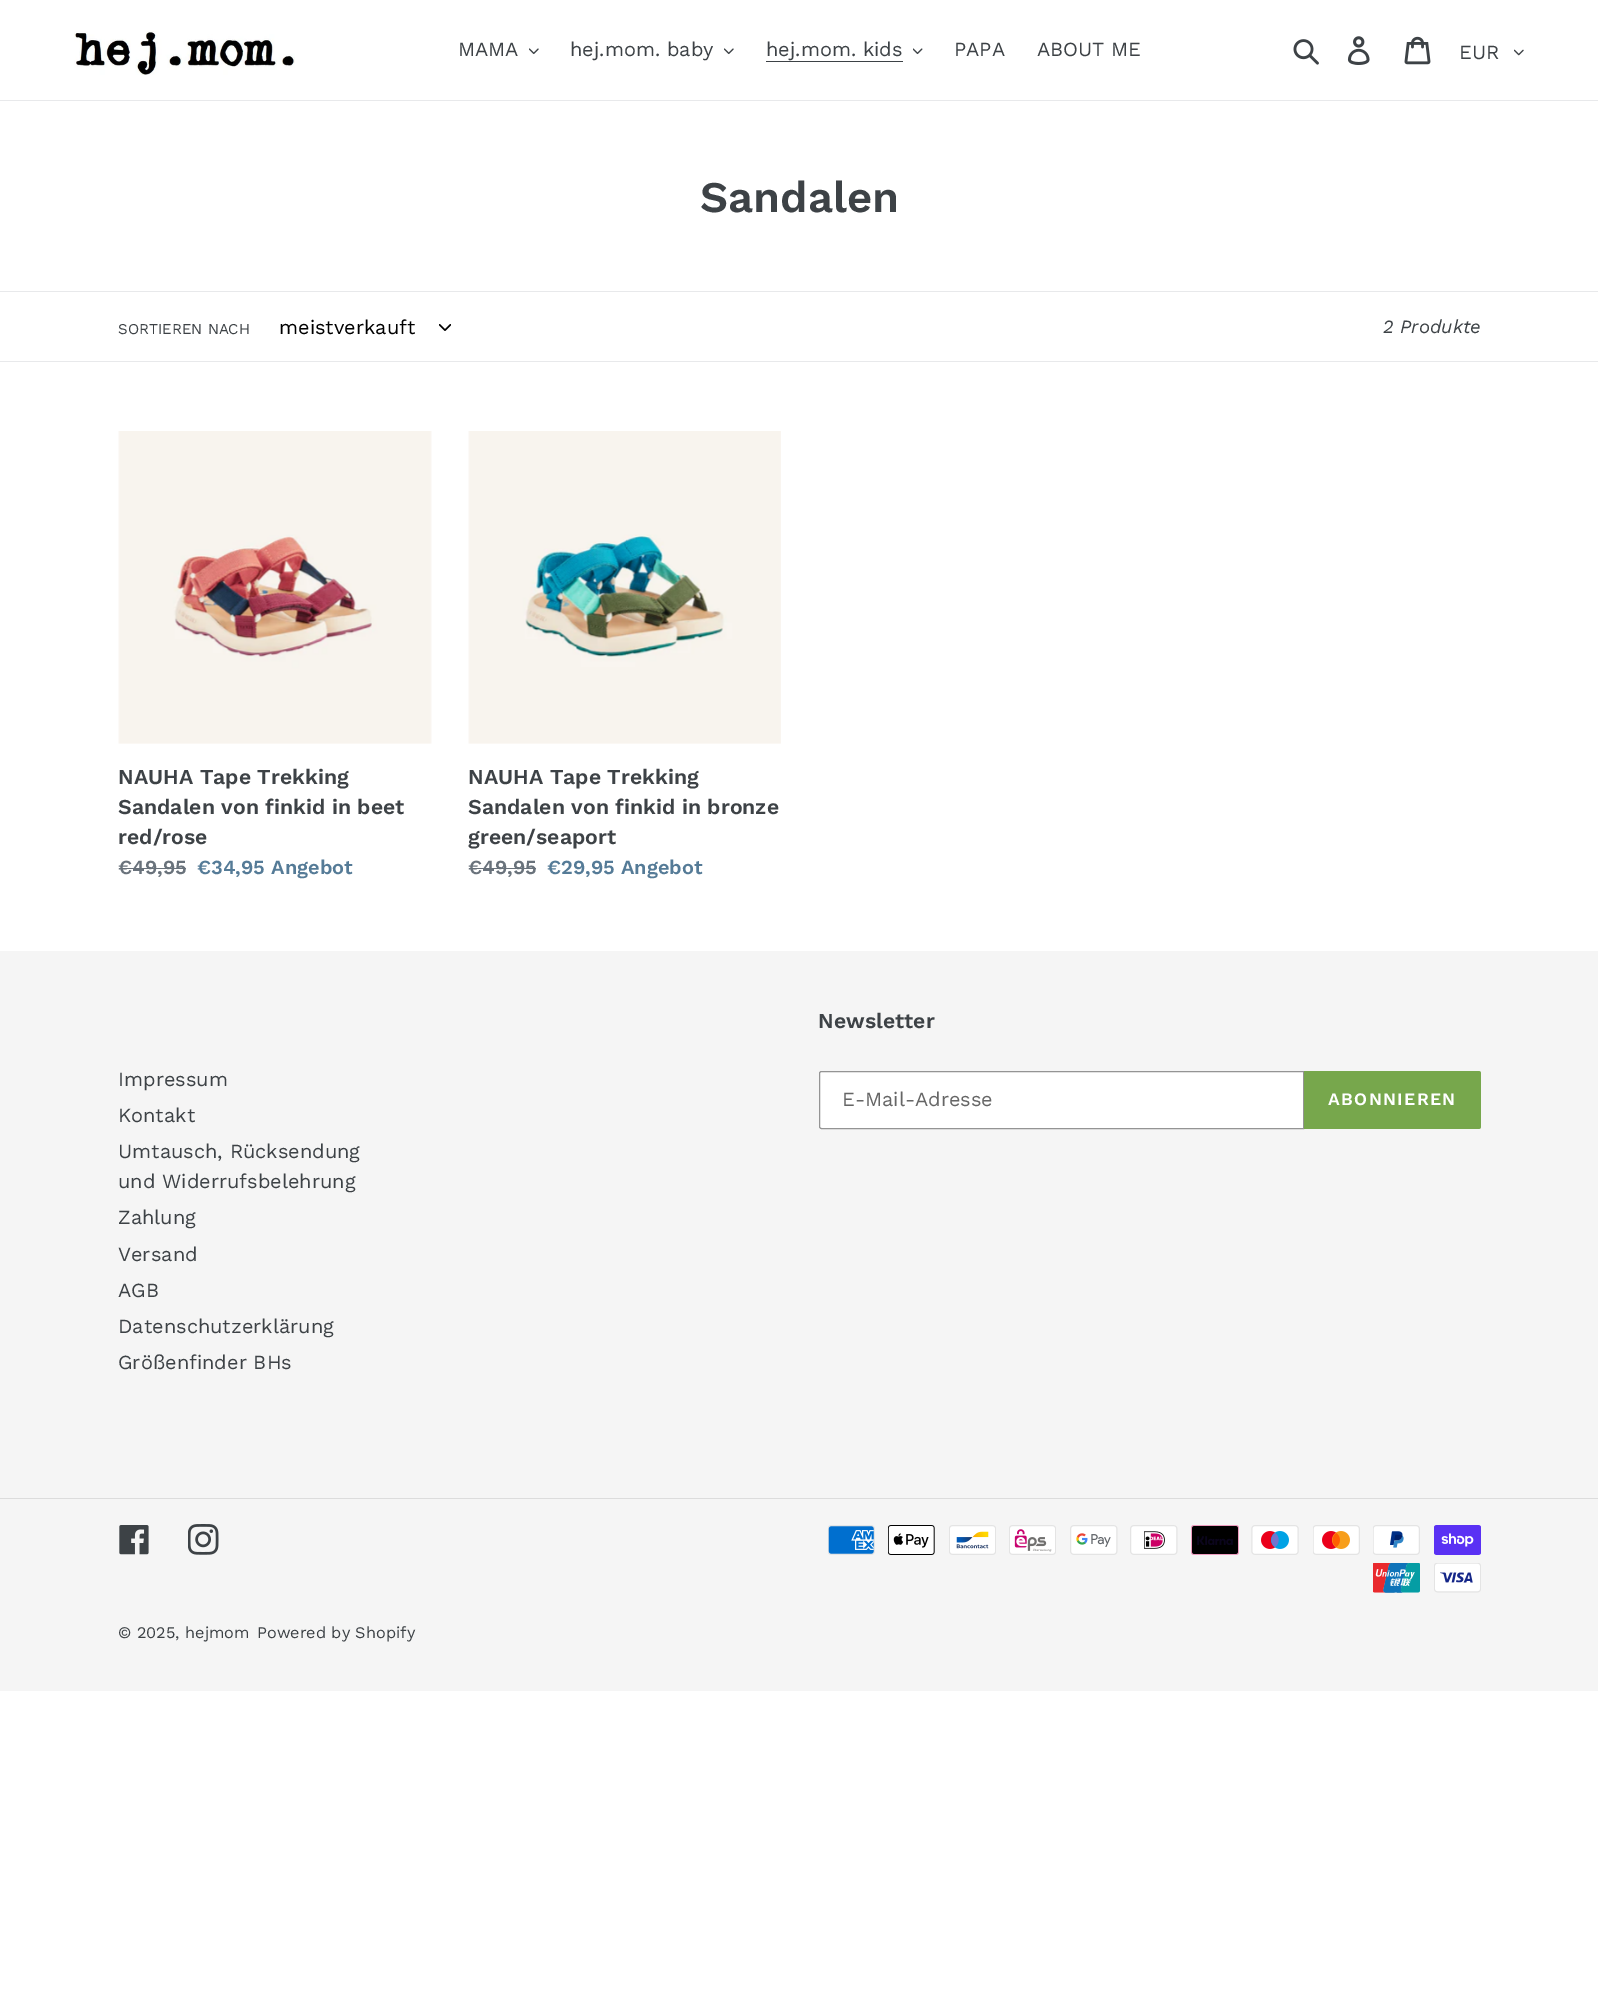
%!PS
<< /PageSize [1598 1991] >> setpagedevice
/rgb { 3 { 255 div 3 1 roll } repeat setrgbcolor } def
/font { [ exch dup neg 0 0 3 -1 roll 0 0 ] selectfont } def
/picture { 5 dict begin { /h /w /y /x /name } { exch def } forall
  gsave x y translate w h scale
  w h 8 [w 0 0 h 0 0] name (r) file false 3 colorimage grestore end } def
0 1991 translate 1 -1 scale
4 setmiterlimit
255 255 255 rgb
0 0 1598 1991 rectfill
232 233 235 rgb
0 100 1598 1 rectfill
(img/1.rgb) 74 31 221 44 picture
(img/2.rgb) 529 48 10 7 picture
(img/2.rgb) 724 48 10 7 picture
61 66 70 rgb
766 61 137 1 rectfill
(img/3.rgb) 913 48 10 7 picture
(img/4.rgb) 1293 39 26 26 picture
(img/5.rgb) 1347 36 23 29 picture
(img/6.rgb) 1404 36 27 29 picture
(img/7.rgb) 1514 49 10 7 picture
232 233 235 rgb
0 291 1598 1 rectfill
0 361 1598 1 rectfill
(img/8.rgb) 439 324 12 7 picture
(img/9.rgb) 118 431 314 313 picture
105 114 123 rgb
119 868 67 1 rectfill
(img/10.rgb) 468 431 313 313 picture
469 868 67 1 rectfill
245 245 245 rgb
0 951 1598 740 rectfill
255 255 255 rgb
821.5 1071.5 moveto 1303.5 1071.5 lineto 1303.5 1128.5 lineto 821.5 1128.5 lineto 820.5 1128.5 819.5 1127.5 819.5 1126.5 curveto 819.5 1073.5 lineto 819.5 1072.5 820.5 1071.5 821.5 1071.5 curveto closepath gsave fill grestore
148 148 148 rgb
stroke
119 167 76 rgb
1304 1071 moveto 1478.5 1071 lineto 1480 1071 1481 1072 1481 1073.5 curveto 1481 1126.5 lineto 1481 1128 1480 1129 1478.5 1129 curveto 1304 1129 lineto closepath fill
220 220 220 rgb
0 1498 1598 1 rectfill
(img/11.rgb) 119 1525 30 30 picture
(img/12.rgb) 188 1524 31 31 picture
(img/13.rgb) 828 1525 47 30 picture
(img/14.rgb) 888 1525 47 30 picture
(img/15.rgb) 949 1525 47 30 picture
(img/16.rgb) 1009 1525 47 30 picture
(img/17.rgb) 1070 1525 48 30 picture
(img/18.rgb) 1130 1525 48 30 picture
(img/19.rgb) 1191 1525 48 30 picture
(img/20.rgb) 1251 1525 48 30 picture
(img/21.rgb) 1313 1525 47 30 picture
(img/22.rgb) 1373 1525 47 30 picture
(img/23.rgb) 1434 1525 47 30 picture
(img/24.rgb) 1373 1563 47 30 picture
(img/25.rgb) 1434 1563 47 30 picture
/WorkSans-Regular 20 font
61 66 70 rgb
[
  [(MAMA) 458 56]
  [(hej.mom. baby) 570 56]
  [(hej.mom. kids) 766 56]
  [(PAPA) 954 56]
  [(ABOUT ME) 1037 56]
  [(EUR) 1459 59]
] { aload pop moveto show } forall
/WorkSans-SemiBold 43.75 font
700 212 moveto (Sandalen) show
/WorkSans-Regular 15 font
118 334 moveto (SORTIEREN NACH) show
/WorkSans-Regular 20 font
0 0 0 rgb
279 334 moveto (meistverkauft) show
/WorkSans-Italic 18.75 font
61 66 70 rgb
1383 333 moveto (2 Produkte) show
/WorkSans-SemiBold 21.25 font
[
  [(NAUHA Tape Trekking) 118 784]
  [(Sandalen von finkid in beet) 118 814]
  [(red/rose) 118 844]
] { aload pop moveto show } forall
/WorkSans-SemiBold 20 font
105 114 123 rgb
118 874 moveto (€49,95) show
85 123 151 rgb
197 874 moveto (€34,95 Angebot) show
/WorkSans-SemiBold 21.25 font
61 66 70 rgb
[
  [(NAUHA Tape Trekking) 468 784]
  [(Sandalen von finkid in bronze) 468 814]
  [(green/seaport) 468 844]
] { aload pop moveto show } forall
/WorkSans-SemiBold 20 font
105 114 123 rgb
468 874 moveto (€49,95) show
85 123 151 rgb
547 874 moveto (€29,95 Angebot) show
/WorkSans-SemiBold 21.25 font
61 66 70 rgb
818 1028 moveto (Newsletter) show
/WorkSans-Regular 20 font
102 102 102 rgb
842 1106 moveto (E-Mail-Adresse) show
/WorkSans-SemiBold 17.5 font
255 255 255 rgb
1328 1105 moveto 1.4 0 (ABONNIEREN) ashow
/WorkSans-Regular 20 font
61 66 70 rgb
[
  [(Impressum) 118 1086]
  [(Kontakt) 118 1122]
  [(Umtausch, Rücksendung) 118 1158]
  [(und Widerrufsbelehrung) 118 1188]
  [(Zahlung) 118 1224]
  [(Versand) 118 1261]
  [(AGB) 118 1297]
  [(Datenschutzerklärung) 118 1333]
  [(Größenfinder BHs) 118 1369]
] { aload pop moveto show } forall
/WorkSans-Regular 16.25 font
118 1638 moveto (© 2025, hejmom) show
257 1638 moveto (Powered by Shopify) show
showpage
